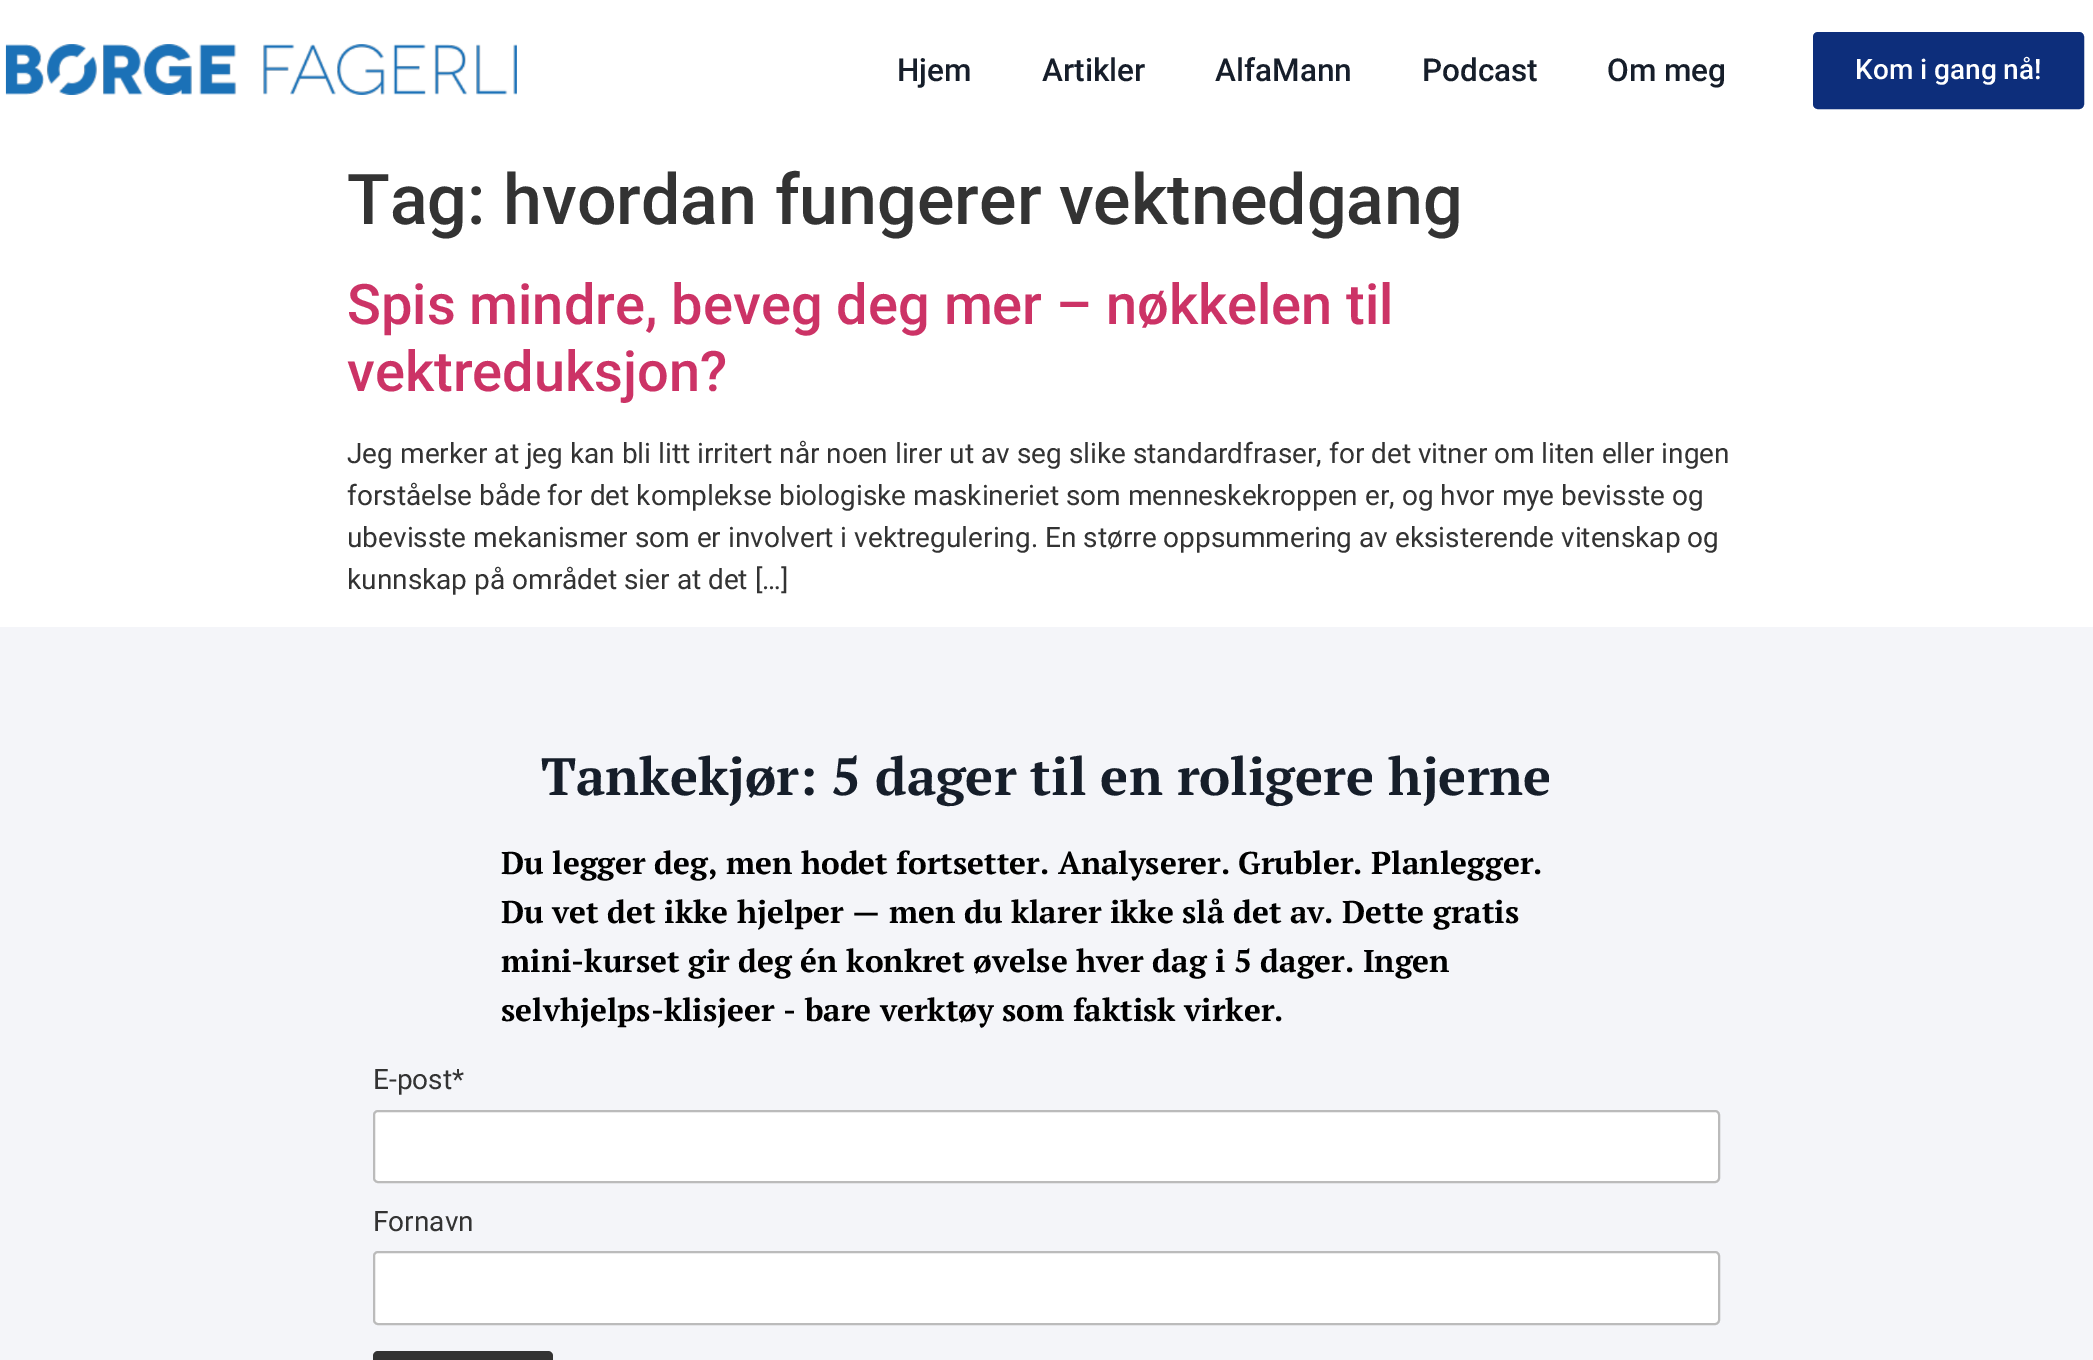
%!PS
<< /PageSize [2093 1360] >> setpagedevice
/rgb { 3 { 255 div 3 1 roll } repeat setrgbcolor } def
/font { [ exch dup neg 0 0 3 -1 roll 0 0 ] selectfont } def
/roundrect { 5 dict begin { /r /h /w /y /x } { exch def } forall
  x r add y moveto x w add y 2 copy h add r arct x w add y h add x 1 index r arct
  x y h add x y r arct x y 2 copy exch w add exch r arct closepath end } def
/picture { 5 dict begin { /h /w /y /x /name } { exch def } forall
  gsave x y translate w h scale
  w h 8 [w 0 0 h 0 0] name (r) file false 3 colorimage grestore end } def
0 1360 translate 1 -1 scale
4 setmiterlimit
255 255 255 rgb
0 0 2093 1360 rectfill
(img/1.rgb) 5 44 512 51 picture
13 46 123 rgb
1815 34 267 73 3 roundrect gsave fill grestore
4 setlinewidth
stroke
244 245 249 rgb
0 627 2093 733 rectfill
255 255 255 rgb
374 1111 1345 71 4 roundrect gsave fill grestore
187 187 187 rgb
2 setlinewidth
stroke
255 255 255 rgb
374 1252 1345 72 4 roundrect gsave fill grestore
187 187 187 rgb
stroke
51 51 51 rgb
373 1351 180 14 5 roundrect fill
/Roboto-Medium 31.5 font
22 30 42 rgb
[
  [(Hjem) 897 81]
  [(Artikler) 1042 81]
  [(AlfaMann) 1215 81]
  [(Podcast) 1422 81]
  [(Om meg) 1607 81]
] { aload pop moveto show } forall
/Roboto-Medium 28 font
255 255 255 rgb
1855 79 moveto (Kom i gang nå!) show
/Roboto-Medium 70 font
51 51 51 rgb
347 224 moveto (Tag: hvordan fungerer vektnedgang) show
/Roboto-Medium 56 font
204 51 102 rgb
347 324 moveto (Spis mindre, beveg deg mer – nøkkelen til) show
347 391 moveto (vektreduksjon?) show
/Roboto-Regular 28 font
51 51 51 rgb
[
  [(Jeg merker at jeg kan bli litt irritert når noen lirer ut av seg slike standardfraser, for det vitner om liten eller ingen) 347 463]
  [(forståelse både for det komplekse biologiske maskineriet som menneskekroppen er, og hvor mye bevisste og) 347 505]
  [(ubevisste mekanismer som er involvert i vektregulering. En større oppsummering av eksisterende vitenskap og) 347 547]
  [(kunnskap på området sier at det […]) 347 589]
] { aload pop moveto show } forall
/PTSerif-Bold 52.5 font
22 30 42 rgb
541 795 moveto (Tankekjør: 5 dager til en roligere hjerne) show
/PTSerif-Bold 31.5 font
0 0 0 rgb
[
  [(Du legger deg, men hodet fortsetter. Analyserer. Grubler. Planlegger.) 501 874]
  [(Du vet det ikke hjelper — men du klarer ikke slå det av. Dette gratis) 501 923]
  [(mini-kurset gir deg én konkret øvelse hver dag i 5 dager. Ingen) 501 972]
  [(selvhjelps-klisjeer - bare verktøy som faktisk virker.) 501 1021]
] { aload pop moveto show } forall
/Roboto-Regular 28 font
51 51 51 rgb
373 1089 moveto (E-post*) show
373 1231 moveto (Fornavn) show
showpage
